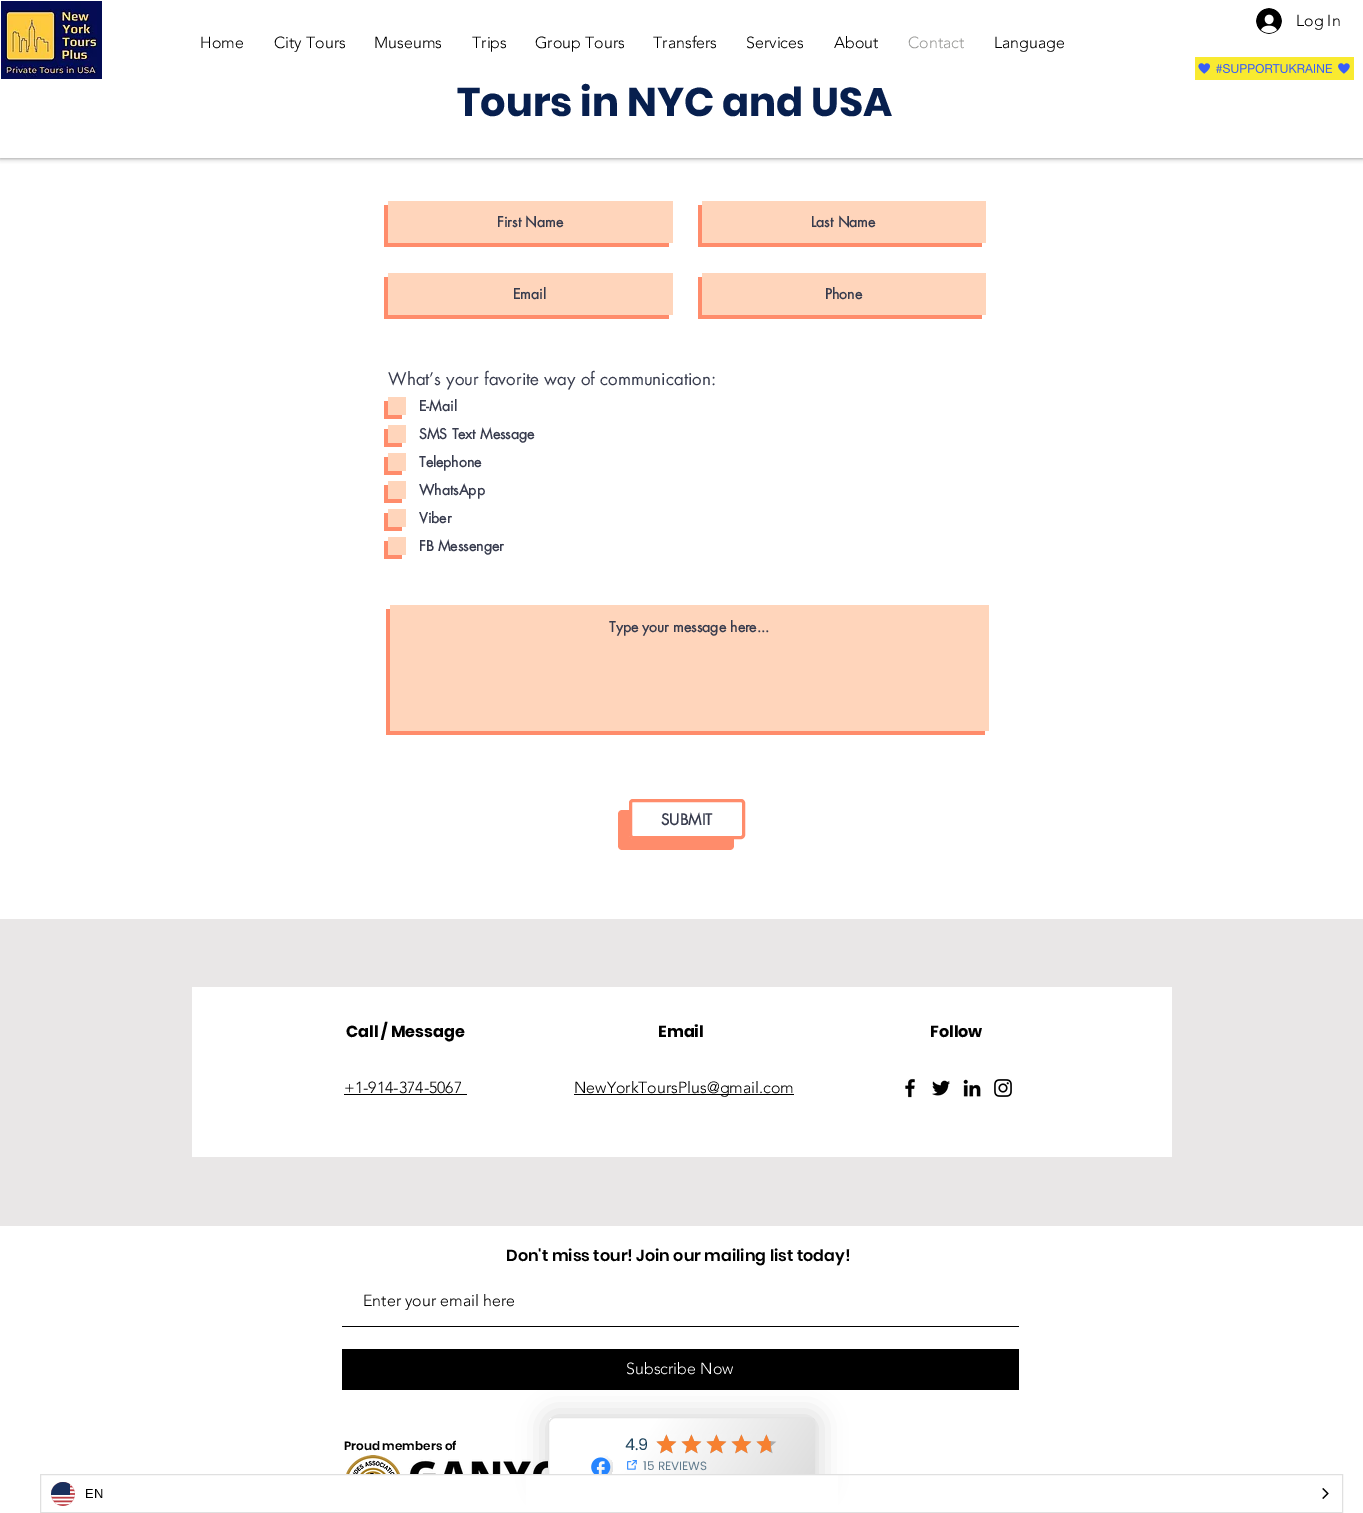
%!PS
<< /PageSize [1363 1513] /PageUsesTransparency true >> setpagedevice
/rgb { 3 { 255 div 3 1 roll } repeat setrgbcolor } def
/font { [ exch dup neg 0 0 3 -1 roll 0 0 ] selectfont } def
/alpha { dup .setfillconstantalpha .setstrokeconstantalpha } def
/circle { newpath 0 360 arc closepath } def
/roundrect { 5 dict begin { /r /h /w /y /x } { exch def } forall
  x r add y moveto x w add y 2 copy h add r arct x w add y h add x 1 index r arct
  x y h add x y r arct x y 2 copy exch w add exch r arct closepath end } def
/shadow { 12 dict begin { /a /b /q /h /w /y /x } { exch def } forall gsave /was 0 def
  9 -2 -9 { dup b mul 4 div /e exch def 1 sub .425 mul 2.718 exch exp 1 add a .99 .min exch div /now exch def
    1 1 now sub 1 was sub div sub alpha /was now def
    w h .min e 2 mul add 0 gt { x e sub y e sub w e 2 mul add h e 2 mul add
      q e add b .6 mul add w h .min 2 div e add .min 0 .max roundrect fill } if } for grestore end } def
/picture { 5 dict begin { /h /w /y /x /name } { exch def } forall
  gsave x y translate w h scale
  w h 8 [w 0 0 h 0 0] name (r) file false 3 colorimage grestore end } def
0 .pushpdf14devicefilter
0 1513 translate 1 -1 scale
4 setmiterlimit
255 255 255 rgb
0 0 1363 1513 rectfill
0 0 0 rgb
0 0 1363 158 0 2.5 0.5 shadow
255 255 255 rgb
0 0 1363 158 rectfill
(img/1.rgb) 1 1 101 78 picture
(img/2.rgb) 1256 8 26 26 picture
(img/3.rgb) 1195 57 159 23 picture
255 140 107 rgb
384 205 moveto 384 247 lineto 669 247 lineto 669 243 lineto 388 243 lineto 388 205 lineto closepath fill
255 213 187 rgb
388 201 285 42 rectfill
255 140 107 rgb
698 205 moveto 698 247 lineto 982 247 lineto 982 243 lineto 702 243 lineto 702 205 lineto closepath fill
255 213 187 rgb
702 201 284 42 rectfill
255 140 107 rgb
384 277 moveto 384 319 lineto 669 319 lineto 669 315 lineto 388 315 lineto 388 277 lineto closepath fill
255 213 187 rgb
388 273 285 42 rectfill
255 140 107 rgb
698 277 moveto 698 319 lineto 982 319 lineto 982 315 lineto 702 315 lineto 702 277 lineto closepath fill
255 213 187 rgb
702 273 284 42 rectfill
255 140 107 rgb
384 401 moveto 384 419 lineto 402 419 lineto 402 415 lineto 388 415 lineto 388 401 lineto closepath fill
255 213 187 rgb
388 397 18 18 rectfill
255 140 107 rgb
384 429 moveto 384 447 lineto 402 447 lineto 402 443 lineto 388 443 lineto 388 429 lineto closepath fill
255 213 187 rgb
388 425 18 18 rectfill
255 140 107 rgb
384 457 moveto 384 475 lineto 402 475 lineto 402 471 lineto 388 471 lineto 388 457 lineto closepath fill
255 213 187 rgb
388 453 18 18 rectfill
255 140 107 rgb
384 485 moveto 384 503 lineto 402 503 lineto 402 499 lineto 388 499 lineto 388 485 lineto closepath fill
255 213 187 rgb
388 481 18 18 rectfill
255 140 107 rgb
384 513 moveto 384 531 lineto 402 531 lineto 402 527 lineto 388 527 lineto 388 513 lineto closepath fill
255 213 187 rgb
388 509 18 18 rectfill
255 140 107 rgb
384 541 moveto 384 559 lineto 402 559 lineto 402 555 lineto 388 555 lineto 388 541 lineto closepath fill
255 213 187 rgb
388 537 18 18 rectfill
255 140 107 rgb
386 609 moveto 386 735 lineto 985 735 lineto 985 731 lineto 390 731 lineto 390 609 lineto closepath fill
255 213 187 rgb
390 605 599 126 rectfill
255 140 107 rgb
622 810 moveto 620 810 618 812 618 814 curveto 618 846 lineto 618 848 620 850 622 850 curveto 730 850 lineto 732 850 734 848 734 846 curveto 734 839 lineto 633 839 lineto 631 839 629 837 629 835 curveto 629 810 lineto closepath fill
255 255 255 rgb
630.5 800.5 113 37 2.5 roundrect gsave fill grestore
255 140 107 rgb
3 setlinewidth
stroke
[
  [0 919 1363 307 233 231 231]
  [192 987 980 170 255 255 255]
  [344 1094 123 1 0 0 0]
  [574 1094 220 1 0 0 0]
] { aload pop rgb rectfill } forall
(img/4.rgb) 905 1078 10 20 picture
(img/5.rgb) 932 1080 18 16 picture
(img/6.rgb) 963 1079 18 18 picture
(img/7.rgb) 994 1079 18 18 picture
342 1326 677 1 rectfill
342 1349 677 41 rectfill
(img/8.rgb) 346 1455 202 19 picture
542 1411 280 84 12 12 0.12 shadow
gsave
548 1417 268 72 8 roundrect clip newpath
gsave 549 1418 moveto 815 1418 lineto 815 1474 lineto 549 1474 lineto closepath clip newpath
<< /ShadingType 2 /ColorSpace /DeviceRGB /Coords [576 1379 788 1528] /Extend [true true] /Function << /FunctionType 3 /Domain [0 1] /Functions [<< /FunctionType 2 /Domain [0 1] /C0 [1 1 1] /C1 [1 1 1] /N 1 >> << /FunctionType 2 /Domain [0 1] /C0 [1 1 1] /C1 [0.859 0.859 0.859] /N 1 >>] /Bounds [0.34] /Encode [0 1 0 1] >> >> shfill grestore
grestore
229 229 229 rgb
1 setlinewidth
548.5 1417.5 267 71 7.5 roundrect stroke
gsave 601 1467 12 circle clip newpath
<< /ShadingType 2 /ColorSpace /DeviceRGB /Coords [587 1457 614 1477] /Extend [true true] /Function << /FunctionType 3 /Domain [0 1] /Functions [<< /FunctionType 2 /Domain [0 1] /C0 [1 1 1] /C1 [1 1 1] /N 1 >> << /FunctionType 2 /Domain [0 1] /C0 [1 1 1] /C1 [0.859 0.859 0.859] /N 1 >>] /Bounds [0.34] /Encode [0 1 0 1] >> >> shfill grestore
(img/9.rgb) 591 1457 20 17 picture
(img/10.rgb) 656 1434 21 20 picture
(img/11.rgb) 656 1434 21 20 picture
(img/12.rgb) 681 1434 21 20 picture
(img/13.rgb) 681 1434 21 20 picture
(img/14.rgb) 706 1434 21 20 picture
(img/15.rgb) 706 1434 21 20 picture
(img/16.rgb) 731 1434 21 20 picture
(img/17.rgb) 731 1434 21 20 picture
(img/18.rgb) 756 1434 21 20 picture
(img/19.rgb) 756 1434 15 20 picture
(img/20.rgb) 627 1460 10 10 picture
255 255 255 rgb
526 1475 312 37 rectfill
224 224 224 rgb
40.5 1474.5 1302 38 rectstroke
(img/21.rgb) 51 1482 24 24 picture
(img/22.rgb) 1322 1488 7 11 picture
/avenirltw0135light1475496-Light 16 font
0 0 0 rgb
[
  [(Log In) 1296 26]
  [(Home) 200 48]
  [(City Tours) 274 48]
  [(Museums) 374 48]
  [(Trips) 472 48]
  [(Group Tours) 535 48]
  [(Transfers) 653 48]
  [(Services) 746 48]
  [(About) 834 48]
] { aload pop moveto show } forall
153 153 151 rgb
908 48 moveto (Contact) show
0 0 0 rgb
994 48 moveto (Language) show
/Poppins-Bold 40 font
7 31 78 rgb
457 116 moveto (Tours in NYC and USA) show
/futura-Bold 14 font
55 59 77 rgb
[
  [(First Name) 497 227]
  [(Last Name) 811 227]
  [(Email) 513 299]
  [(Phone) 825 299]
] { aload pop moveto show } forall
/futura-Regular 17 font
388 385 moveto (What’s your favorite way of communication:) show
/futura-Bold 14 font
[
  [(E-Mail) 419 411]
  [(SMS Text Message) 419 439]
  [(Telephone) 419 467]
  [(WhatsApp) 419 495]
  [(Viber) 419 523]
  [(FB Messenger) 419 551]
  [(Type your message here...) 609 632]
] { aload pop moveto show } forall
/futura-Bold 15 font
661 825 moveto (SUBMIT) show
/Poppins-Bold 16 font
0 0 0 rgb
[
  [(Call / Message) 346 1037]
  [(Email) 658 1037]
  [(Follow) 930 1037]
] { aload pop moveto show } forall
/avenirltw0135light1475496-Light 16 font
344 1093 moveto (+1-914-374-5067) show
574 1093 moveto (NewYorkToursPlus@gmail.com) show
/Poppins-SemiBold 16 font
506 1261 moveto (Don't miss tour! Join our mailing list today!) show
/avenirltw0135light1475496-Light 16 font
363 1306 moveto (Enter your email here) show
255 255 255 rgb
626 1374 moveto (Subscribe Now) show
/Poppins-SemiBold 12 font
0 0 0 rgb
344 1450 moveto (Proud members of) show
/Poppins-Regular 16 font
32 69 94 rgb
625 1450 moveto (4.9) show
/Poppins-Regular 12 font
96 122 140 rgb
643 1470 moveto (15 REVIEWS) show
/LiberationSans-Regular 13 font
0 0 0 rgb
85 1498 moveto (EN) show
.poppdf14devicefilter showpage
